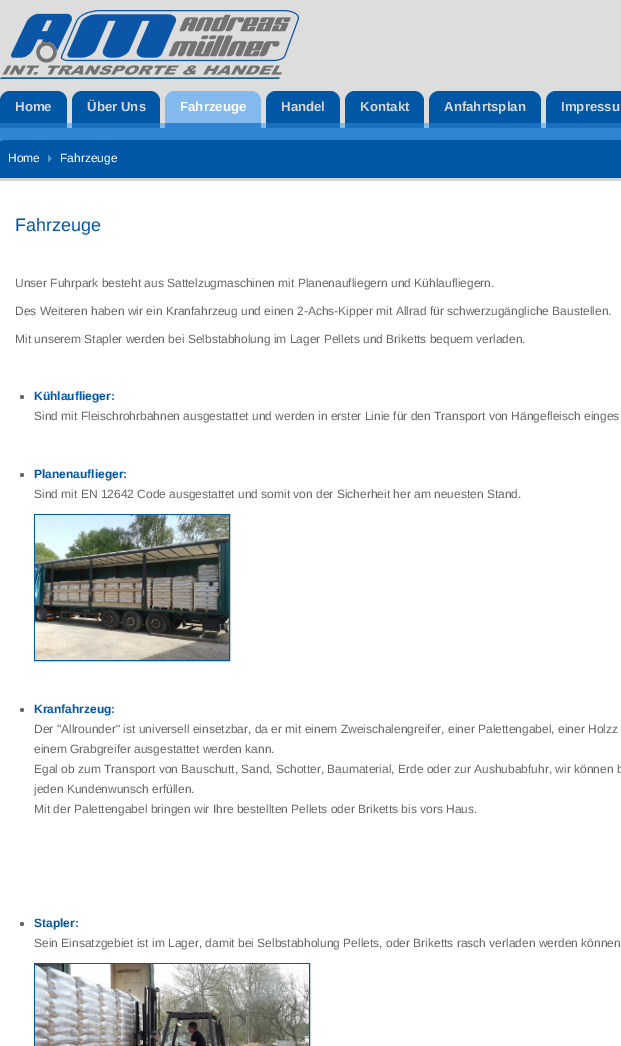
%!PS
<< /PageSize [621 1046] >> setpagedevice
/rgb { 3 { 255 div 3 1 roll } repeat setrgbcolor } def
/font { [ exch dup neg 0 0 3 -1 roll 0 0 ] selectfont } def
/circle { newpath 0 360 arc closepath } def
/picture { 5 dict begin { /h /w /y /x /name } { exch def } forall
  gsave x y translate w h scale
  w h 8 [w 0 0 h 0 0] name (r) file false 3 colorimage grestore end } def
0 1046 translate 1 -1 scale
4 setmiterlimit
47 132 211 rgb
0 0 621 1046 rectfill
221 221 221 rgb
0 0 621 123 rectfill
131 185 236 rgb
67 123 479 5 rectfill
(img/1.rgb) 0 10 299 69 picture
0 87 166 rgb
10 91 moveto 57 91 lineto 62.5 91 67 95.5 67 101 curveto 67 128 lineto 0 128 lineto 0 101 lineto 0 95.5 4.5 91 10 91 curveto closepath fill
27 112 191 rgb
0 123 67 5 rectfill
0 87 166 rgb
82 91 moveto 150 91 lineto 155.5 91 160 95.5 160 101 curveto 160 128 lineto 72 128 lineto 72 101 lineto 72 95.5 76.5 91 82 91 curveto closepath fill
27 112 191 rgb
72 123 88 5 rectfill
131 185 236 rgb
175 91 moveto 251 91 lineto 256.5 91 261 95.5 261 101 curveto 261 128 lineto 165 128 lineto 165 101 lineto 165 95.5 169.5 91 175 91 curveto closepath fill
47 132 211 rgb
165 123 96 5 rectfill
0 87 166 rgb
276 91 moveto 330 91 lineto 335.5 91 340 95.5 340 101 curveto 340 128 lineto 266 128 lineto 266 101 lineto 266 95.5 270.5 91 276 91 curveto closepath fill
27 112 191 rgb
266 123 74 5 rectfill
0 87 166 rgb
355 91 moveto 414 91 lineto 419.5 91 424 95.5 424 101 curveto 424 128 lineto 345 128 lineto 345 101 lineto 345 95.5 349.5 91 355 91 curveto closepath fill
27 112 191 rgb
345 123 79 5 rectfill
0 87 166 rgb
439 91 moveto 531 91 lineto 536.5 91 541 95.5 541 101 curveto 541 128 lineto 429 128 lineto 429 101 lineto 429 95.5 433.5 91 439 91 curveto closepath fill
27 112 191 rgb
429 123 112 5 rectfill
0 87 166 rgb
556 91 moveto 621 91 lineto 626.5 91 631 95.5 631 101 curveto 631 128 lineto 546 128 lineto 546 101 lineto 546 95.5 550.5 91 556 91 curveto closepath fill
27 112 191 rgb
546 123 75 5 rectfill
0 87 166 rgb
6 140 moveto 621 140 lineto 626.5 140 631 144.5 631 150 curveto 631 178 lineto -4 178 lineto -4 150 lineto -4 144.5 0.5 140 6 140 curveto closepath fill
(img/2.rgb) 48 155 4 7 picture
255 255 255 rgb
0 181 621 865 rectfill
212 212 212 rgb
0 178 621 3 rectfill
102 102 102 rgb
22 397 2 circle fill
22 475 2 circle fill
0 87 166 rgb
34.5 514.5 195 146 rectstroke
(img/3.rgb) 35 515 194 145 picture
102 102 102 rgb
22 710 2 circle fill
22 924 2 circle fill
0 87 166 rgb
34.5 963.5 275 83 rectstroke
(img/4.rgb) 35 964 274 82 picture
/LiberationSans-Bold 13.25 font
216 216 216 rgb
15 111 moveto (Home) show
87 111 moveto (Über Uns) show
255 255 255 rgb
180 111 moveto (Fahrzeuge) show
216 216 216 rgb
[
  [(Handel) 281 111]
  [(Kontakt) 360 111]
  [(Anfahrtsplan) 444 111]
  [(Impressu) 561 111]
] { aload pop moveto show } forall
/LiberationSans-Regular 12 font
255 255 255 rgb
8 162 moveto (Home) show
60 162 moveto (Fahrzeuge) show
/LiberationSans-Regular 18 font
1 86 166 rgb
15 231 moveto (Fahrzeuge) show
/LiberationSans-Regular 12 font
102 102 102 rgb
[
  [(Unser Fuhrpark besteht aus Sattelzugmaschinen mit Planenaufliegern und Kühlaufliegern.) 15 287]
  [(Des Weiteren haben wir ein Kranfahrzeug und einen 2-Achs-Kipper mit Allrad für schwerzugängliche Baustellen.) 15 315]
  [(Mit unserem Stapler werden bei Selbstabholung im Lager Pellets und Briketts bequem verladen.) 15 343]
] { aload pop moveto show } forall
/LiberationSans-Bold 12 font
1 86 166 rgb
34 400 moveto (Kühlauflieger:) show
/LiberationSans-Regular 12 font
102 102 102 rgb
34 420 moveto (Sind mit Fleischrohrbahnen ausgestattet und werden in erster Linie für den Transport von Hängefleisch einges) show
/LiberationSans-Bold 12 font
1 86 166 rgb
34 478 moveto (Planenauflieger:) show
/LiberationSans-Regular 12 font
102 102 102 rgb
34 498 moveto (Sind mit EN 12642 Code ausgestattet und somit von der Sicherheit her am neuesten Stand.) show
/LiberationSans-Bold 12 font
1 86 166 rgb
34 713 moveto (Kranfahrzeug:) show
/LiberationSans-Regular 12 font
102 102 102 rgb
[
  [(Der "Allrounder" ist universell einsetzbar, da er mit einem Zweischalengreifer, einer Palettengabel, einer Holzz) 34 733]
  [(einem Grabgreifer ausgestattet werden kann.) 34 753]
  [(Egal ob zum Transport von Bauschutt, Sand, Schotter, Baumaterial, Erde oder zur Aushubabfuhr, wir können b) 34 773]
  [(jeden Kundenwunsch erfüllen.) 34 793]
  [(Mit der Palettengabel bringen wir Ihre bestellten Pellets oder Briketts bis vors Haus.) 34 813]
] { aload pop moveto show } forall
/LiberationSans-Bold 12 font
1 86 166 rgb
34 927 moveto (Stapler:) show
/LiberationSans-Regular 12 font
102 102 102 rgb
34 947 moveto (Sein Einsatzgebiet ist im Lager, damit bei Selbstabholung Pellets, oder Briketts rasch verladen werden können) show
showpage
